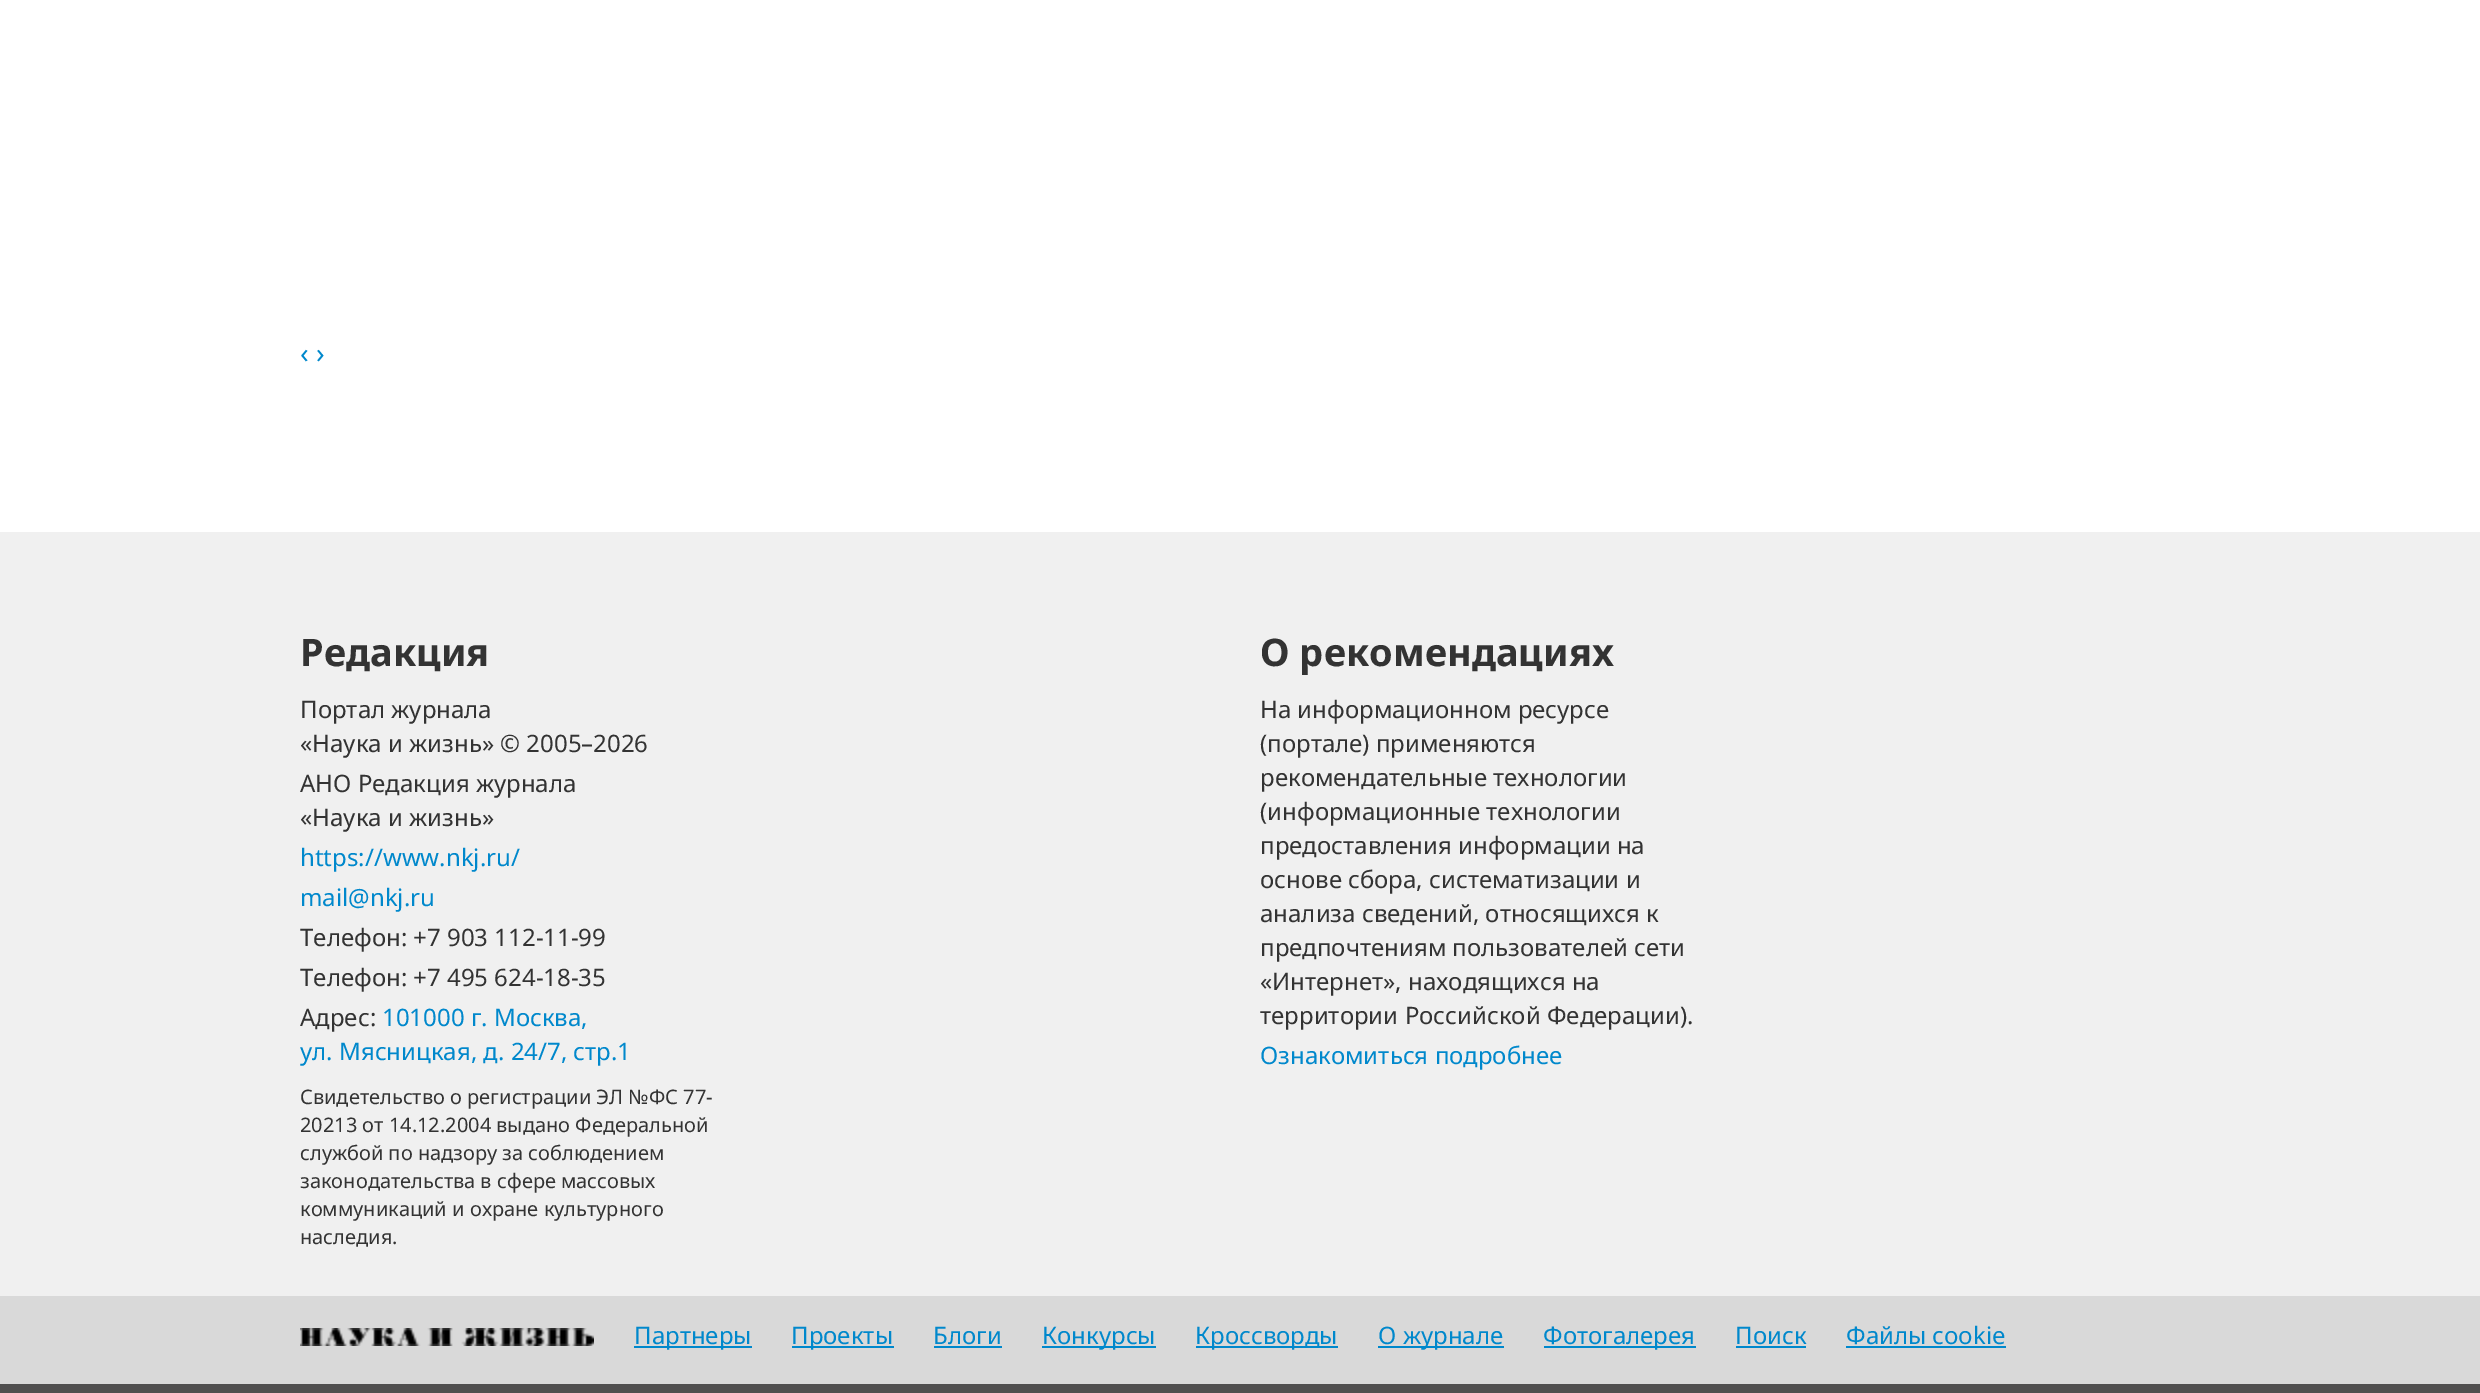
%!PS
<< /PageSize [2480 1393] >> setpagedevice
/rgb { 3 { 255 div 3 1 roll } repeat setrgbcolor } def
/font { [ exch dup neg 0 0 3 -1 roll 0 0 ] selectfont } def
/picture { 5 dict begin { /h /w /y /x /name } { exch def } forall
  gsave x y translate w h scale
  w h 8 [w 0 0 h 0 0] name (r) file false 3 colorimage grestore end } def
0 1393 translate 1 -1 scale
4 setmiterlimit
255 255 255 rgb
0 0 2480 1393 rectfill
240 240 240 rgb
0 532 2480 764 rectfill
217 217 217 rgb
0 1296 2480 88 rectfill
(img/1.rgb) 300 1328 294 18 picture
[
  [634 1346 118 2 0 136 204]
  [792 1346 102 2 0 136 204]
  [934 1346 68 2 0 136 204]
  [1042 1346 114 2 0 136 204]
  [1196 1346 142 2 0 136 204]
  [1378 1346 126 2 0 136 204]
  [1544 1346 152 2 0 136 204]
  [1736 1346 70 2 0 136 204]
  [1846 1346 160 2 0 136 204]
  [0 1384 2480 9 80 79 79]
] { aload pop rgb rectfill } forall
/NotoSans-Regular 28 font
0 136 204 rgb
300 363 moveto (‹ ›) show
/NotoSans-Bold 38 font
51 51 51 rgb
300 666 moveto (Редакция) show
/NotoSans-Regular 24 font
[
  [(Портал журнала) 300 718]
  [(«Наука и жизнь» © 2005–2026) 300 752]
  [(АНО Редакция журнала) 300 792]
  [(«Наука и жизнь») 300 826]
] { aload pop moveto show } forall
0 136 204 rgb
300 866 moveto (https://www.nkj.ru/) show
300 906 moveto (mail@nkj.ru) show
51 51 51 rgb
[
  [(Телефон: +7 903 112-11-99) 300 946]
  [(Телефон: +7 495 624-18-35) 300 986]
  [(Адрес:) 300 1026]
] { aload pop moveto show } forall
0 136 204 rgb
382 1026 moveto (101000 г. Москва,) show
300 1060 moveto (ул. Мясницкая, д. 24/7, стр.1) show
/NotoSans-Regular 20 font
51 51 51 rgb
[
  [(Свидетельство о регистрации ЭЛ №ФС 77-) 300 1104]
  [(20213 от 14.12.2004 выдано Федеральной) 300 1132]
  [(службой по надзору за соблюдением) 300 1160]
  [(законодательства в сфере массовых) 300 1188]
  [(коммуникаций и охране культурного) 300 1216]
  [(наследия.) 300 1244]
] { aload pop moveto show } forall
/NotoSans-Bold 38 font
1260 666 moveto (О рекомендациях) show
/NotoSans-Regular 24 font
[
  [(На информационном ресурсе) 1260 718]
  [(\(портале\) применяются) 1260 752]
  [(рекомендательные технологии) 1260 786]
  [(\(информационные технологии) 1260 820]
  [(предоставления информации на) 1260 854]
  [(основе сбора, систематизации и) 1260 888]
  [(анализа сведений, относящихся к) 1260 922]
  [(предпочтениям пользователей сети) 1260 956]
  [(«Интернет», находящихся на) 1260 990]
  [(территории Российской Федерации\).) 1260 1024]
] { aload pop moveto show } forall
0 136 204 rgb
[
  [(Ознакомиться подробнее) 1260 1064]
  [(Партнеры) 634 1344]
  [(Проекты) 791 1344]
  [(Блоги) 933 1344]
  [(Конкурсы) 1042 1344]
  [(Кроссворды) 1195 1344]
  [(О журнале) 1378 1344]
  [(Фотогалерея) 1543 1344]
  [(Поиск) 1735 1344]
  [(Файлы cookie) 1846 1344]
] { aload pop moveto show } forall
showpage
